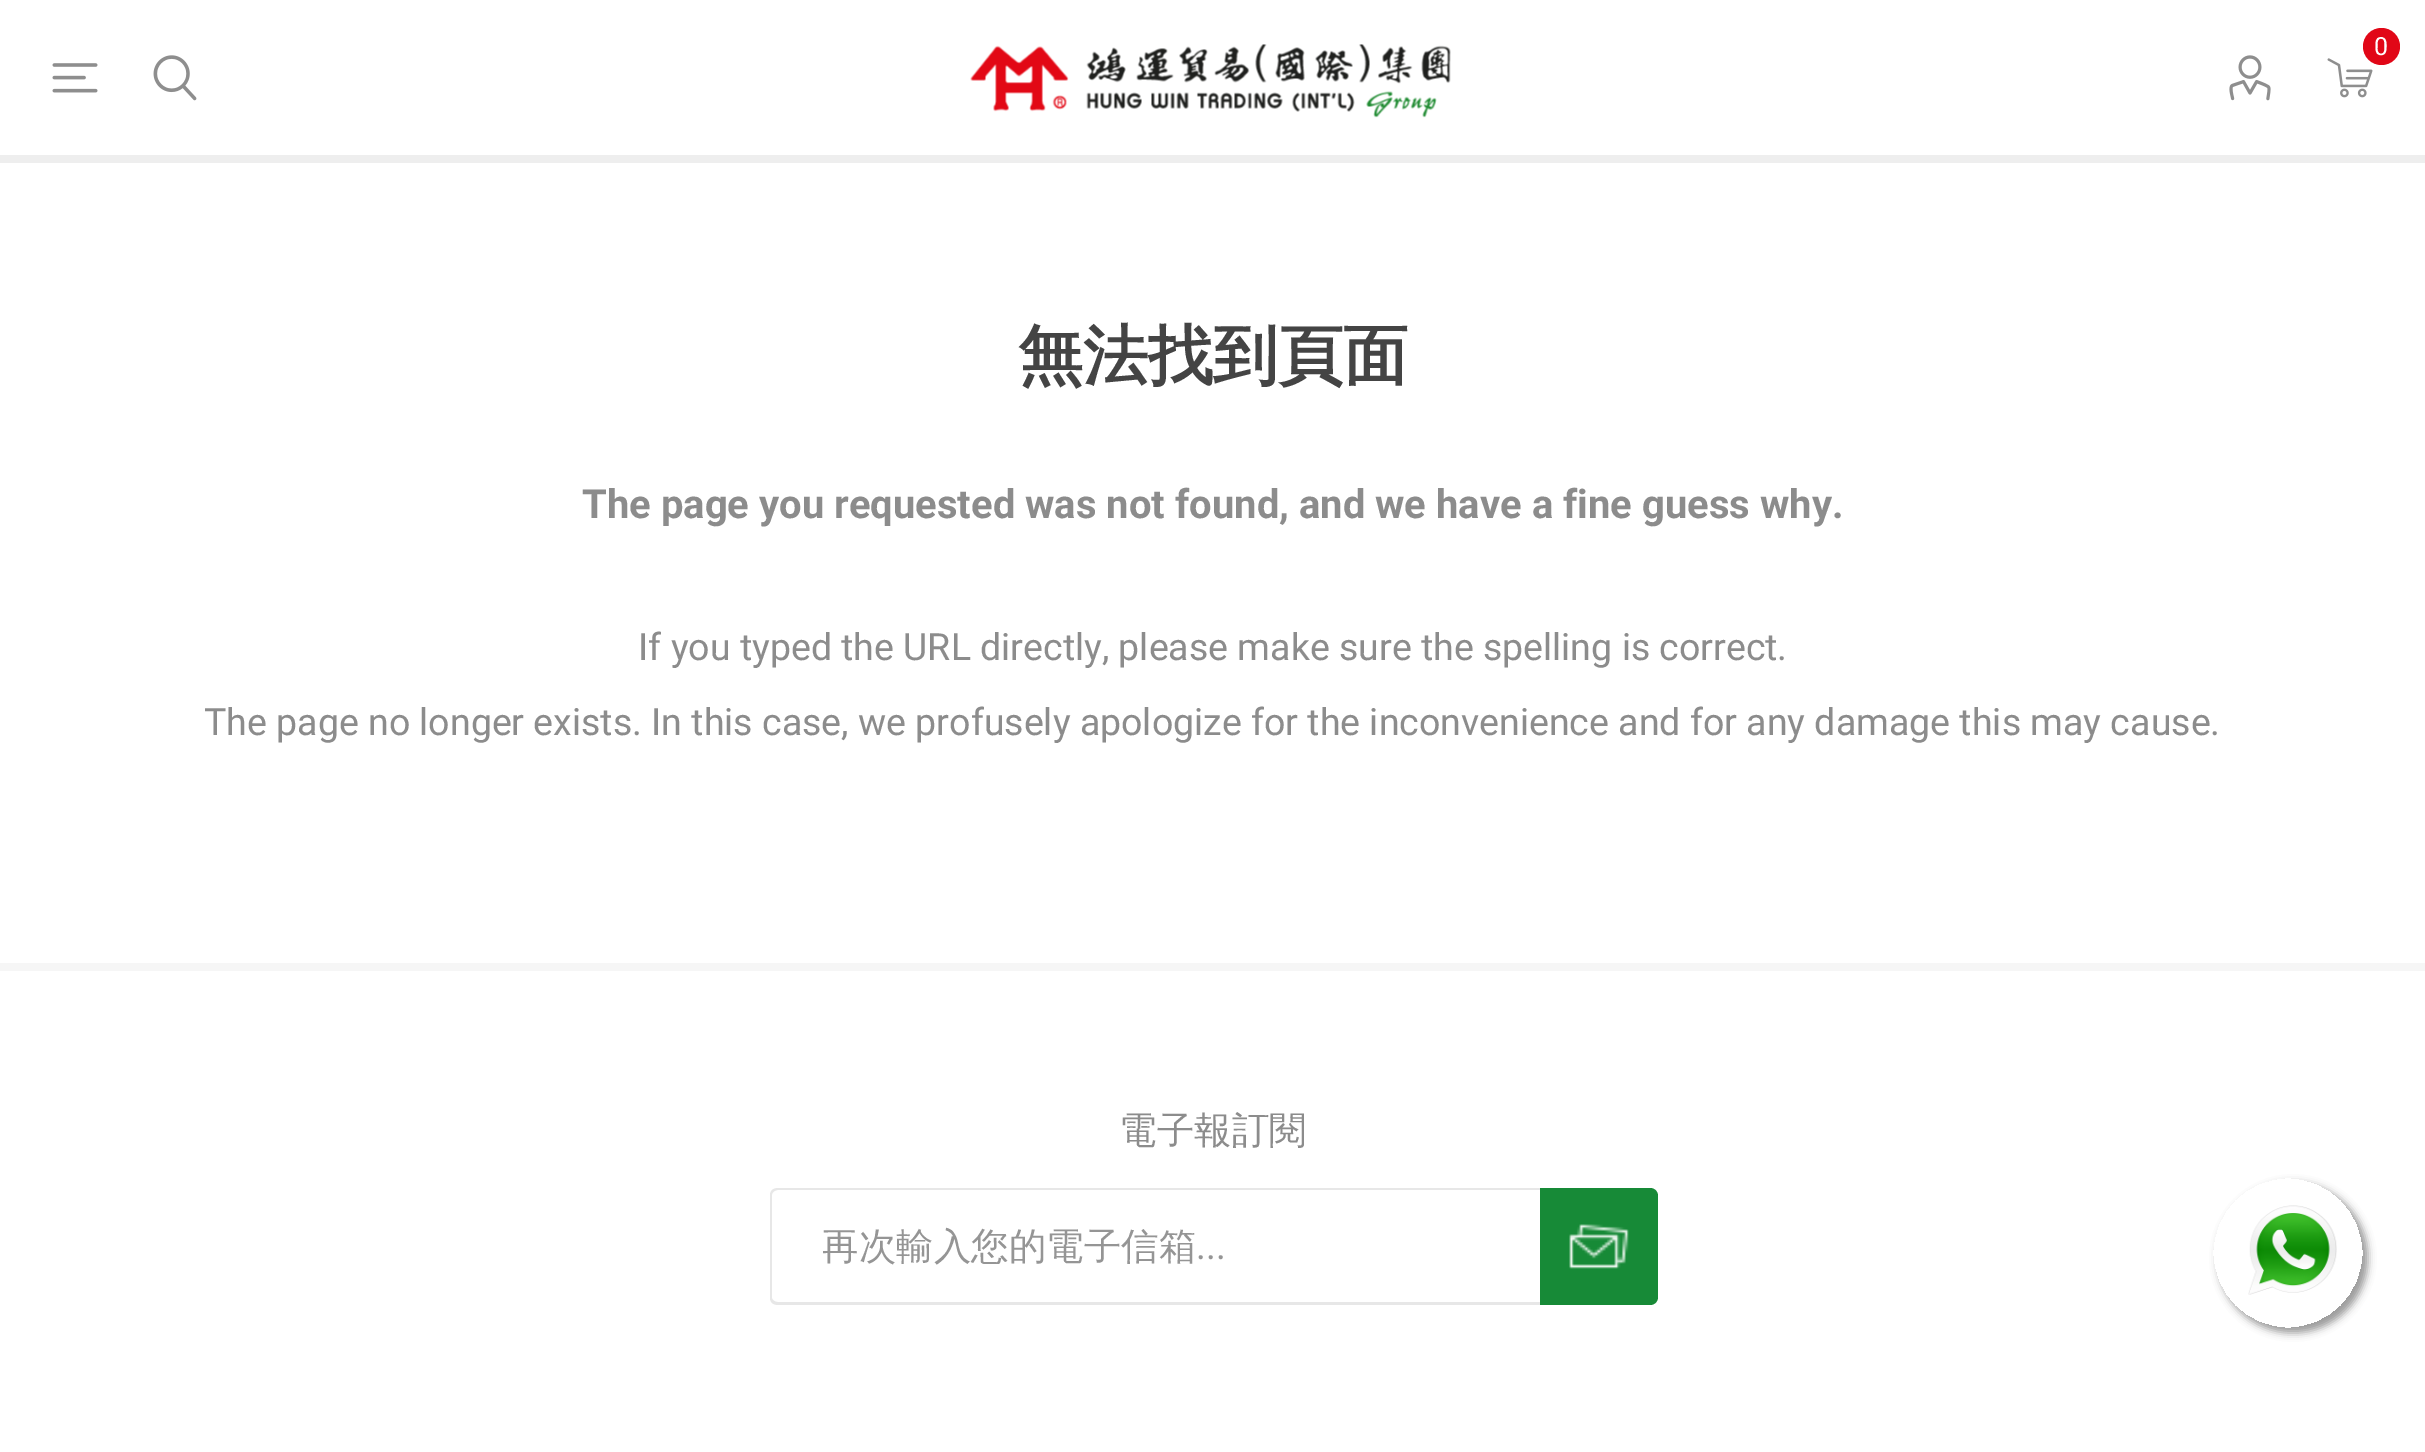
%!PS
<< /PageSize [2425 1452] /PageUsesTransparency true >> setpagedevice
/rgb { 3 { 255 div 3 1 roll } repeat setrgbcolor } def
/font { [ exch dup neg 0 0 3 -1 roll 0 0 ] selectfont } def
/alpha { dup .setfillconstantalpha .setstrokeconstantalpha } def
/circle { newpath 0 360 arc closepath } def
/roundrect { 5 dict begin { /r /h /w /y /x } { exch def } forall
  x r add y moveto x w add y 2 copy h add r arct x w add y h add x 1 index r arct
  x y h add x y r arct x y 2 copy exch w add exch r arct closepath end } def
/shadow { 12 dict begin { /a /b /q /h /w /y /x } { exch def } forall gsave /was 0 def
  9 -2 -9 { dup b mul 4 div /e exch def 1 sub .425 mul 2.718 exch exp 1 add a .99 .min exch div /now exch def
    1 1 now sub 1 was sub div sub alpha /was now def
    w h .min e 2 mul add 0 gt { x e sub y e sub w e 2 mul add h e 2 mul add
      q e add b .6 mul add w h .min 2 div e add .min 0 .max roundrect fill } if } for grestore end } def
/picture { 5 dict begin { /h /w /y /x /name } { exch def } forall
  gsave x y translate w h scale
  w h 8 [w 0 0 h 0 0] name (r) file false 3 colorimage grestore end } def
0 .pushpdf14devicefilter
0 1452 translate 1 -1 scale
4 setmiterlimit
255 255 255 rgb
0 0 2425 1452 rectfill
238 238 238 rgb
0 155 2425 8 rectfill
(img/1.rgb) 52 63 46 30 picture
(img/2.rgb) 153 55 44 46 picture
(img/3.rgb) 970 44 481 74 picture
(img/4.rgb) 2229 55 42 46 picture
(img/5.rgb) 2327 58 46 40 picture
225 7 23 rgb
2381.5 46.5 18.5 circle fill
246 246 246 rgb
0 963 2425 8 rectfill
231 231 231 rgb
778 1188 moveto 1540 1188 lineto 1540 1305 lineto 778 1305 lineto 773 1305 770 1302 770 1298 curveto 770 1195 lineto 770 1191 773 1188 778 1188 curveto closepath 778 1190 moveto 1540 1190 lineto 1540 1302 lineto 778 1302 lineto 775 1302 772 1300 772 1298 curveto 772 1195 lineto 772 1192 775 1190 778 1190 curveto closepath eofill
23 138 55 rgb
1540 1188 moveto 1650 1188 lineto 1654.5 1188 1658 1191.5 1658 1196 curveto 1658 1297 lineto 1658 1301.5 1654.5 1305 1650 1305 curveto 1540 1305 lineto closepath fill
(img/6.rgb) 1569 1224 60 45 picture
gsave
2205 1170 moveto 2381 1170 lineto 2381 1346 lineto 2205 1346 lineto closepath 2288 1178 moveto 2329.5 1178 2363 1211.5 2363 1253 curveto 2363 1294.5 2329.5 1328 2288 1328 curveto 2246.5 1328 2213 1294.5 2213 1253 curveto 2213 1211.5 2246.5 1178 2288 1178 curveto closepath eoclip newpath
153 153 153 rgb
2218 1183 150 150 75 4 1 shadow
grestore
(img/7.rgb) 2248 1205 89 90 picture
/Roboto-Regular 25 font
255 255 255 rgb
2374 55 moveto (0) show
/WenQuanYiZenHei-Bold 65 font
68 68 68 rgb
1018 378 moveto (無法找到頁面) show
/Roboto-Bold 40 font
140 140 140 rgb
582 518 moveto (The page you requested was not found, and we have a fine guess why.) show
/Roboto-Regular 37.5 font
638 660 moveto (If you typed the URL directly, please make sure the spelling is correct.) show
204 735 moveto (The page no longer exists. In this case, we profusely apologize for the inconvenience and for any damage this may cause.) show
/WenQuanYiZenHei-Medium 37.5 font
1119 1143 moveto (電子報訂閱) show
gsave
823 1225 667 48 rectclip
149 149 149 rgb
821 1259 moveto (再次輸入您的電子信箱) show
grestore
/Roboto-Regular 37.5 font
149 149 149 rgb
1196 1259 moveto (...) show
.poppdf14devicefilter showpage
